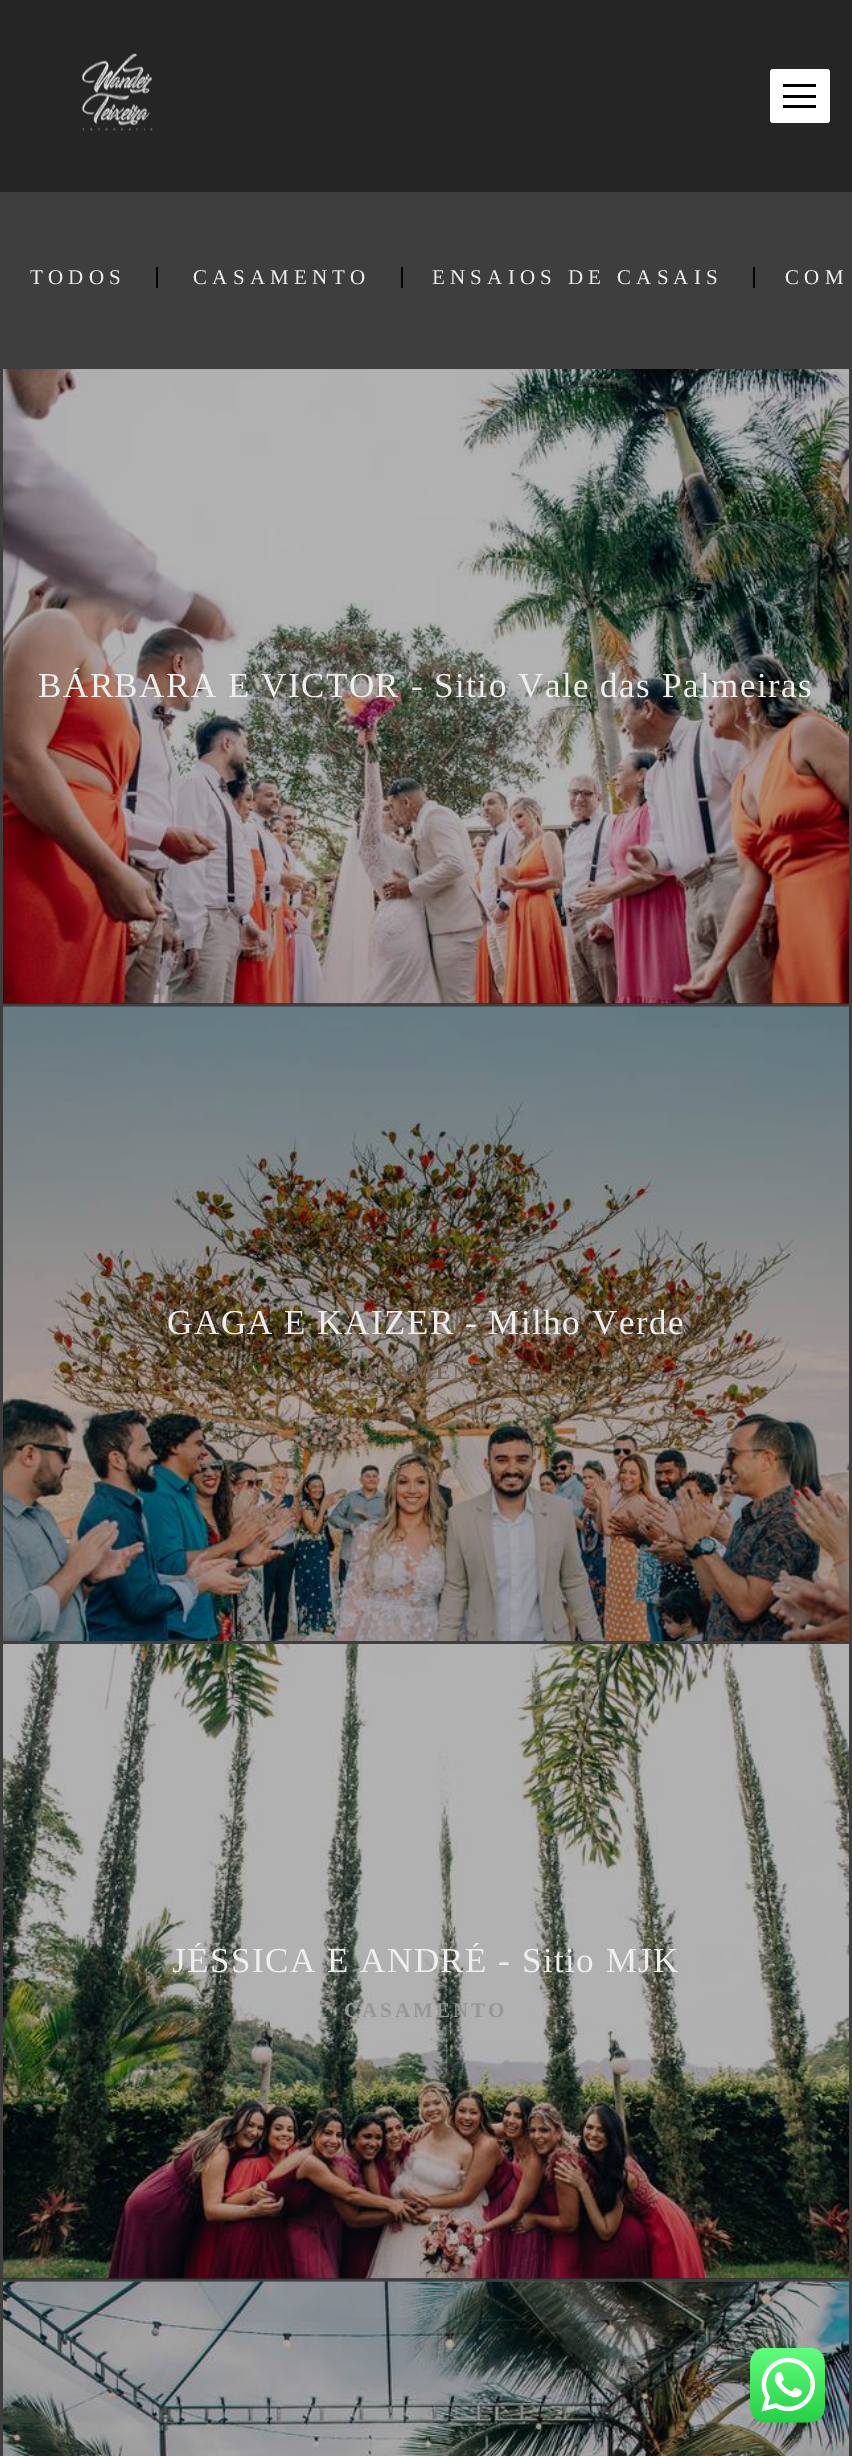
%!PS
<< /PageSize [852 2456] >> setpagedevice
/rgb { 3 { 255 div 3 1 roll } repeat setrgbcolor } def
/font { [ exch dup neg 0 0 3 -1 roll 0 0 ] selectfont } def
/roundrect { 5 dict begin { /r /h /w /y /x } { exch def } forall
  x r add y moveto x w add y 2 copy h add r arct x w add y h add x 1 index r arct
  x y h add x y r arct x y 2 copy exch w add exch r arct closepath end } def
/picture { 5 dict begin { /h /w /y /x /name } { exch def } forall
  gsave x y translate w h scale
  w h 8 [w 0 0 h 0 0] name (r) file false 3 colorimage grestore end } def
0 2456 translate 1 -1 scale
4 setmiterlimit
62 62 62 rgb
0 0 852 2456 rectfill
[
  [3 2278 846 1 43 43 43]
  [3 1003 846 1 43 43 43]
  [0 0 852 192 37 37 37]
] { aload pop rgb rectfill } forall
(img/1.rgb) 81 53 72 78 picture
255 255 255 rgb
770 69 60 54 3 roundrect fill
[
  [783 84 33 3 0 0 0]
  [783 95 33 3 0 0 0]
  [783 105 33 3 0 0 0]
  [156 267 2 21 0 0 0]
  [401 267 2 21 0 0 0]
  [753 267 2 21 0 0 0]
] { aload pop rgb rectfill } forall
(img/2.rgb) 3 369 846 635 picture
(img/3.rgb) 3 1006 846 635 picture
(img/4.rgb) 3 1644 846 635 picture
(img/5.rgb) 3 2281 846 175 picture
(img/6.rgb) 750 2348 75 75 picture
/LiberationSerif-Regular 21 font
238 238 238 rgb
30 284 moveto 5.25 0 (TODOS) ashow
193 284 moveto 5.25 0 (CASAMENTO) ashow
432 284 moveto 5.25 0 (ENSAIOS DE CASAIS) ashow
785 284 moveto 5.25 0 (COM) ashow
gsave
3 668 846 39 rectclip
/LiberationSerif-Regular 35 font
38 697 moveto 1.5 0 (BÁRBARA E VICTOR - Sitio Vale das Palmeiras) ashow
grestore
/LiberationSerif-Regular 35 font
167 1334 moveto 1.5 0 (GAGA E KAIZER - Milho Verde) ashow
/LiberationSerif-Bold 21 font
115 100 84 rgb
344 1379 moveto 3 0 (CASAMENTO) ashow
gsave
3 1943 846 39 rectclip
/LiberationSerif-Regular 35 font
238 238 238 rgb
172 1972 moveto 1.5 0 (JÉSSICA E ANDRÉ - Sitio MJK) ashow
grestore
148 151 149 rgb
344 2017 moveto 3 0 (CASAMENTO) ashow
showpage
